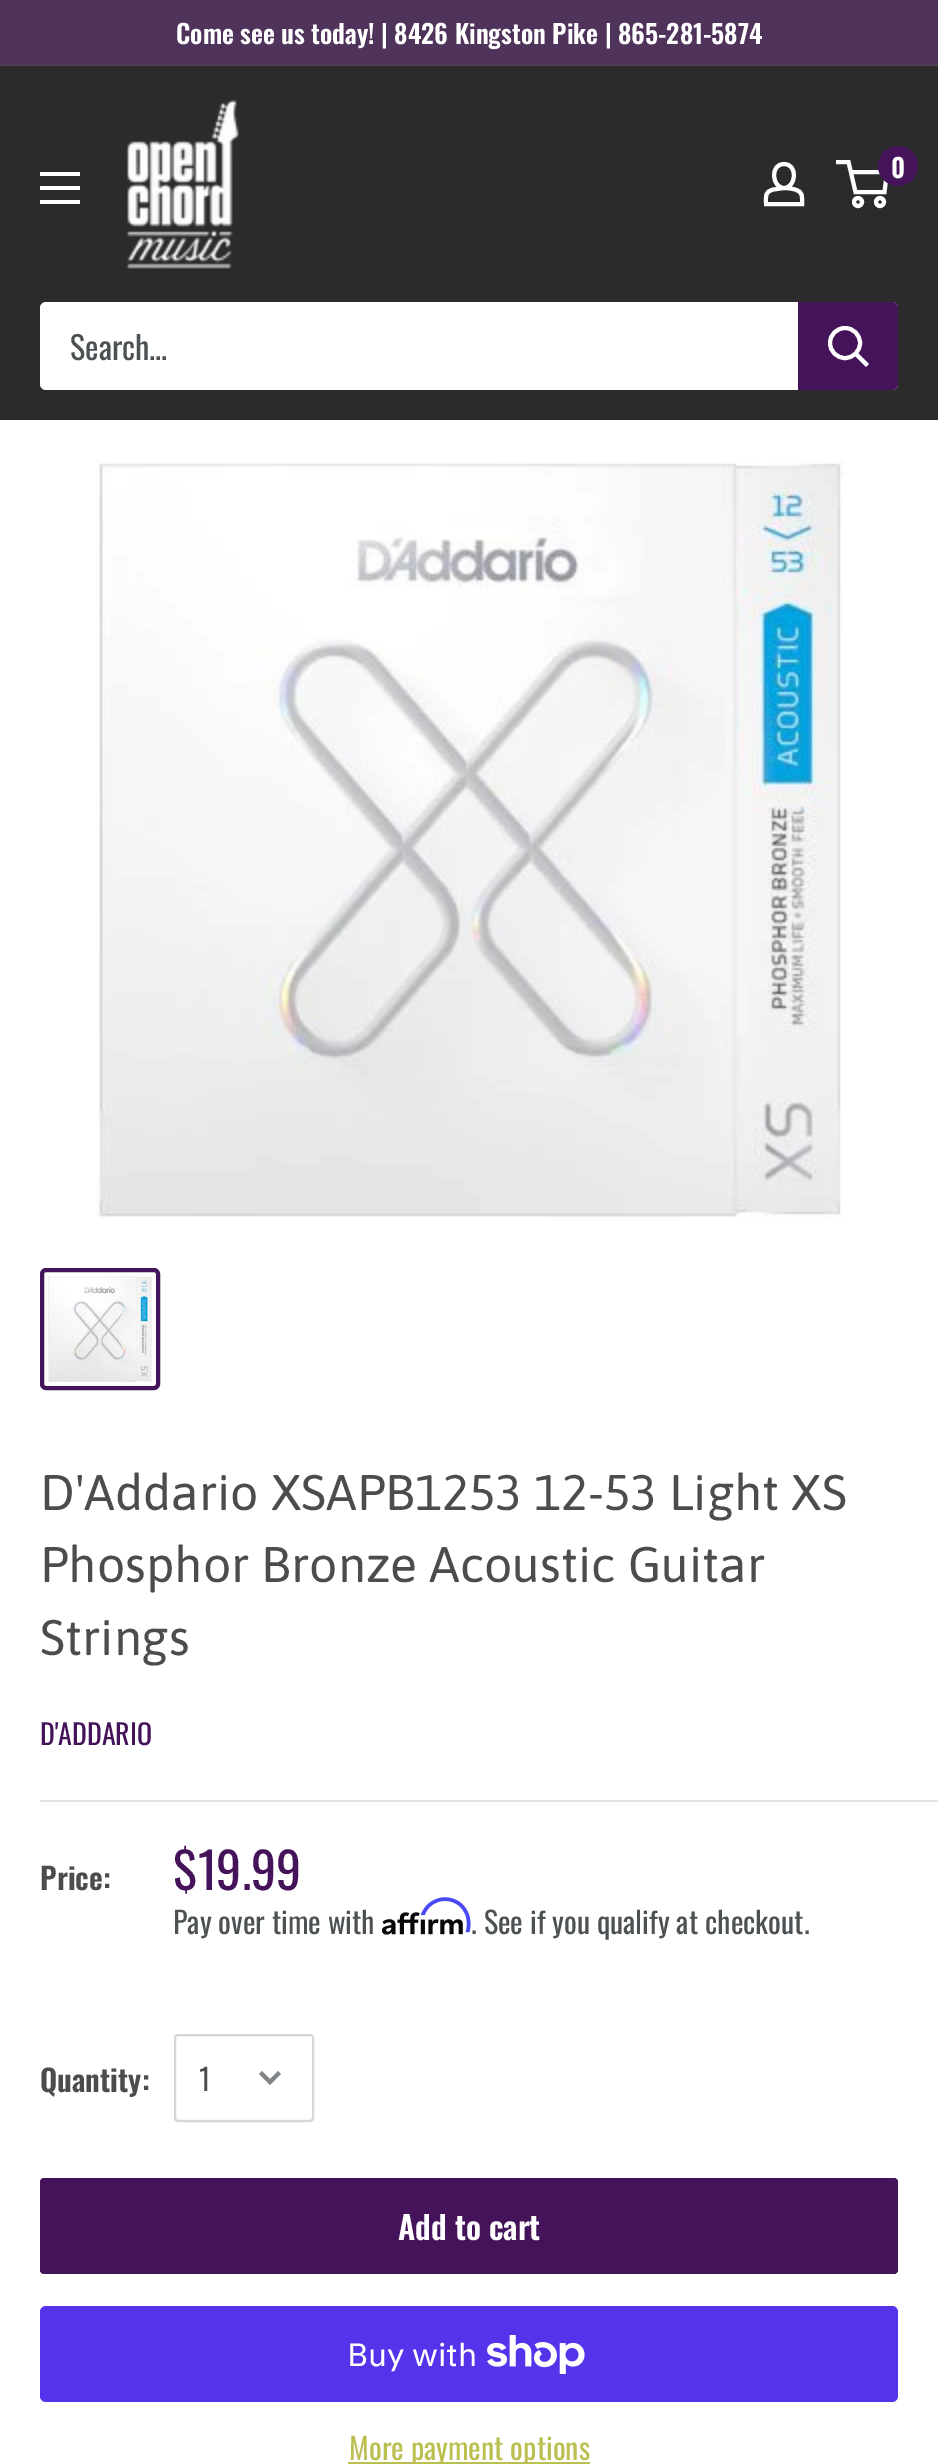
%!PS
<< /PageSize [938 2464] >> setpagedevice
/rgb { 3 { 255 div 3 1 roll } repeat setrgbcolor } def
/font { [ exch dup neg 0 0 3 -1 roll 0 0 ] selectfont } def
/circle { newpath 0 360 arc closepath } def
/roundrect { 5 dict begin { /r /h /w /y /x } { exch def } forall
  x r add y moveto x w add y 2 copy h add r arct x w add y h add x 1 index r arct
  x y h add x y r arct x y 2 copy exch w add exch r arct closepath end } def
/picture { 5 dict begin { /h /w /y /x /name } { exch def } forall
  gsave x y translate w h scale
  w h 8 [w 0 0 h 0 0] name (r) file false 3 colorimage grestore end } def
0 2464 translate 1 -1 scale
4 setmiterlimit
79 51 91 rgb
0 0 938 2464 rectfill
78 60 89 rgb
0 64 938 2 rectfill
43 43 43 rgb
0 66 938 354 rectfill
(img/1.rgb) 126 99 113 170 picture
255 255 255 rgb
4 setlinewidth
784 188 moveto 788 188 791.5 188.5 795 189.5 curveto 803.5 192 802 196.5 802 204 curveto 766 204 lineto 766 196 764.5 191.5 773.5 189.5 curveto closepath 784 188 moveto 772 188 769.5 164 784 164 curveto 798.5 164 796 188 784 188 curveto closepath stroke
858 202 4 circle stroke
880 202 4 circle stroke
850.5 172 moveto 887 172 lineto 884.5 192 lineto 855.5 192 lineto 848.5 162 lineto 836 162 lineto stroke
69 19 90 rgb
898 166 20 circle fill
255 255 255 rgb
40 200 moveto 80 200 lineto 80 204 lineto 40 204 lineto closepath 40 172 moveto 80 172 lineto 80 176 lineto 40 176 lineto closepath 40 186 moveto 80 186 lineto 80 190 lineto 40 190 lineto closepath eofill
40 302 858 88 6 roundrect fill
69 19 90 rgb
798 302 moveto 892 302 lineto 895.5 302 898 304.5 898 308 curveto 898 384 lineto 898 387.5 895.5 390 892 390 curveto 798 390 lineto closepath fill
255 255 255 rgb
2 setlinecap
866 364 moveto 856 354 lineto stroke
0 setlinecap
845 343 15 circle stroke
0 420 938 2044 rectfill
(img/2.rgb) 96 460 748 758 picture
69 19 90 rgb
42 1270 116 118 4 roundrect stroke
(img/3.rgb) 48 1276 104 106 picture
225 227 228 rgb
40 1800 898 2 rectfill
(img/5.rgb) 382 1912 81 23 picture
(img/4.rgb) 420 1897 51 36 picture
246 247 247 rgb
176 2116 moveto 176 2118 lineto 176 2119 177 2120 178 2120 curveto 310 2120 lineto 311 2120 312 2119 312 2118 curveto 312 2116 lineto 312 2117 311 2118 310 2118 curveto 178 2118 lineto 177 2118 176 2117 176 2116 curveto closepath fill
212 214 216 rgb
2 setlinewidth
175 2035 138 86 3 roundrect stroke
130 133 135 rgb
4 setlinewidth
2 setlinecap
278 2074 moveto 270 2082 lineto 262 2074 lineto stroke
69 19 90 rgb
40 2178 858 96 4 roundrect fill
84 51 235 rgb
40 2306 858 96 6 roundrect fill
(img/6.rgb) 487 2335 98 39 picture
187 191 80 rgb
348 2462 242 2 rectfill
/Oswald-SemiBold 26 font
255 255 255 rgb
176 44 moveto (Come see us today! | 8426 Kingston Pike | 865-281-5874) show
891 178 moveto (0) show
/Oswald-Regular 32 font
76 81 84 rgb
70 360 moveto (Search...) show
/Asap-Regular 50 font
76 76 76 rgb
[
  [(D'Addario XSAPB1253 12-53 Light XS) 40 1510]
  [(Phosphor Bronze Acoustic Guitar) 40 1582]
  [(Strings) 40 1655]
] { aload pop moveto show } forall
/Oswald-Regular 28 font
69 19 90 rgb
40 1745 moveto (D'ADDARIO) show
/Oswald-SemiBold 30 font
76 76 76 rgb
40 1890 moveto (Price:) show
/Oswald-Regular 50 font
69 19 90 rgb
173 1890 moveto ($19.99) show
/Oswald-Regular 30 font
76 81 84 rgb
173 1934 moveto (Pay over time with) show
471 1934 moveto (. See if you qualify at checkout.) show
/Oswald-SemiBold 30 font
76 76 76 rgb
40 2092 moveto (Quantity:) show
/Oswald-Regular 30 font
199 2091 moveto (1) show
/Oswald-SemiBold 32 font
255 255 255 rgb
398 2240 moveto (Add to cart) show
/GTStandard-Regular 32 font
347 2366 moveto (Buy with) show
/Oswald-Regular 30 font
187 191 80 rgb
349 2460 moveto (More payment options) show
showpage
